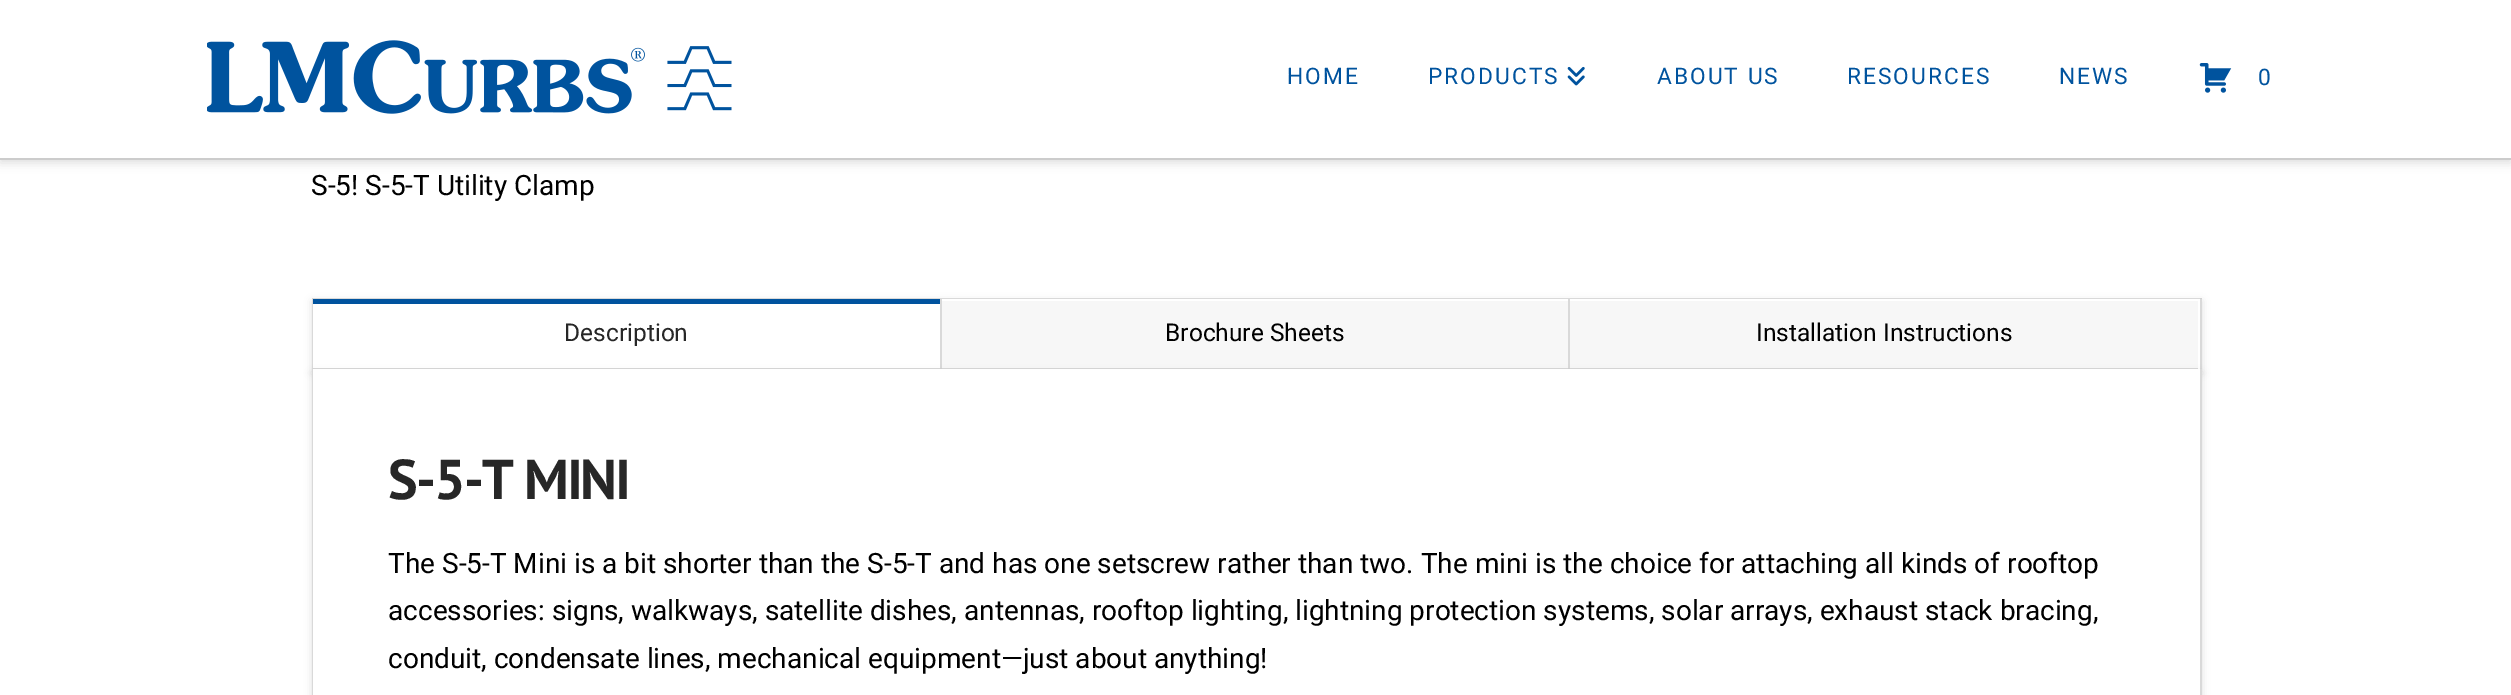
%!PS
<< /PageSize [2511 695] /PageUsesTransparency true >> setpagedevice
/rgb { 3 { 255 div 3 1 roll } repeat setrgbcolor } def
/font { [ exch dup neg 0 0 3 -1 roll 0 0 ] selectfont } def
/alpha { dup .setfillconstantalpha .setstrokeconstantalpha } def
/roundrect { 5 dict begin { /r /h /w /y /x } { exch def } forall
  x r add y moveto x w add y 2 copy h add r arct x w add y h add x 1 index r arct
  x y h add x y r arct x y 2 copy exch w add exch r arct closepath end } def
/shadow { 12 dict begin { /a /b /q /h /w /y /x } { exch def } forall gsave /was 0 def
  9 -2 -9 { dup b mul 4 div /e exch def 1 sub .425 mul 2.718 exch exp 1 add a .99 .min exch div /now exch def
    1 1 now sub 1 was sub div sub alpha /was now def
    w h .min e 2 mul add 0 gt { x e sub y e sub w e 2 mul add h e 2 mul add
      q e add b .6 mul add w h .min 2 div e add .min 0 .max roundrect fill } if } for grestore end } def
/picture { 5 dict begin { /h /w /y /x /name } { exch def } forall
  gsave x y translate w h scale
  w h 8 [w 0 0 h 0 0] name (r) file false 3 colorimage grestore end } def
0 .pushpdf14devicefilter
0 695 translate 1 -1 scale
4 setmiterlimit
255 255 255 rgb
0 0 2511 695 rectfill
0 0 0 rgb
0 4 2511 159 0 5 0.13 shadow
255 255 255 rgb
0 0 2511 158 rectfill
204 204 204 rgb
0 158 2511 2 rectfill
(img/1.rgb) 207 40 525 74 picture
(img/2.rgb) 1567 66 18 20 picture
(img/3.rgb) 2199 63 33 30 picture
gsave
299 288 moveto 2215 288 lineto 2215 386 lineto 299 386 lineto closepath 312 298 moveto 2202 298 lineto 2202 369 lineto 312 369 lineto closepath eoclip newpath
0 0 0 rgb
312 301 1890 72 0 4 0.12 shadow
grestore
217 217 217 rgb
312 298 moveto 2202 298 lineto 2200 299 lineto 313 299 lineto closepath fill
0.15 alpha
0 0 0 rgb
2202 298 moveto 2202 369 lineto 2200 369 lineto 2200 299 lineto closepath fill
312 369 moveto 312 298 lineto 313 299 lineto 313 369 lineto closepath fill
1 alpha
217 217 217 rgb
942 299 moveto 942 369 lineto 940 368 lineto 940 299 lineto closepath fill
0.15 alpha
0 0 0 rgb
942 369 moveto 313 369 lineto 313 368 lineto 940 368 lineto closepath fill
1 alpha
0 83 158 rgb
313 299 627 5 rectfill
217 217 217 rgb
1570 299 moveto 1570 369 lineto 1568 368 lineto 1568 299 lineto closepath fill
0.15 alpha
0 0 0 rgb
1570 369 moveto 942 369 lineto 942 368 lineto 1568 368 lineto closepath fill
1 alpha
[
  [942 301 626 67 247 247 247]
] { aload pop rgb rectfill } forall
0.15 alpha
[
  [1570 368 628 1 0 0 0]
] { aload pop rgb rectfill } forall
1 alpha
[
  [1570 301 628 67 247 247 247]
] { aload pop rgb rectfill } forall
0 0 0 rgb
312 373 1890 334 0 4 0.12 shadow
255 255 255 rgb
313 369 1887 326 rectfill
217 217 217 rgb
2202 369 moveto 2202 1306 lineto 2200 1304 lineto 2200 369 lineto closepath fill
312 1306 moveto 312 369 lineto 313 369 lineto 313 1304 lineto closepath fill
/Roboto-Regular 22.75 font
0 83 158 rgb
1287 84 moveto 2 0 (HOME) ashow
1428 84 moveto 2 0 (PRODUCTS) ashow
1657 84 moveto 2 0 (ABOUT US) ashow
1847 84 moveto 2 0 (RESOURCES) ashow
2059 84 moveto 2 0 (NEWS) ashow
2258 85 moveto 2 0 (0) ashow
/Roboto-Regular 28 font
0 0 0 rgb
311 195 moveto (S-5! S-5-T Utility Clamp) show
/Roboto-Regular 24.5 font
39 39 39 rgb
564 341 moveto (Description) show
0 0 0 rgb
1165 341 moveto (Brochure Sheets) show
1756 341 moveto (Installation Instructions) show
/PTSans-Bold 56 font
39 39 39 rgb
388 499 moveto -2 0 (S-5-T MINI) ashow
/Roboto-Regular 28 font
0 0 0 rgb
[
  [(The S-5-T Mini is a bit shorter than the S-5-T and has one setscrew rather than two. The mini is the choice for attaching all kinds of rooftop) 388 573]
  [(accessories: signs, walkways, satellite dishes, antennas, rooftop lighting, lightning protection systems, solar arrays, exhaust stack bracing,) 388 620]
  [(conduit, condensate lines, mechanical equipment—just about anything!) 388 668]
] { aload pop moveto show } forall
.poppdf14devicefilter showpage
